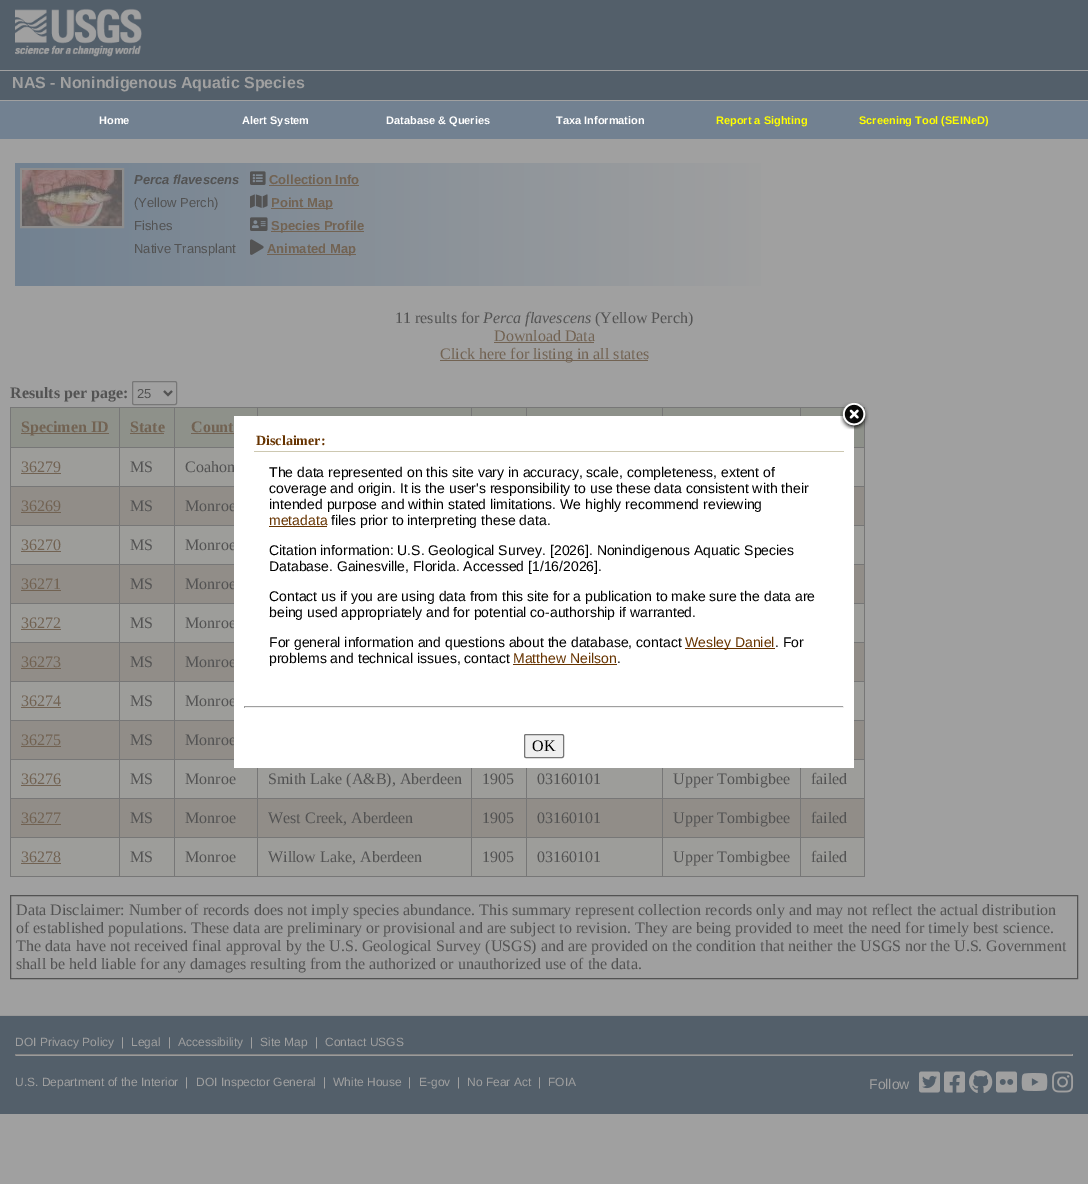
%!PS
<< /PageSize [1088 1184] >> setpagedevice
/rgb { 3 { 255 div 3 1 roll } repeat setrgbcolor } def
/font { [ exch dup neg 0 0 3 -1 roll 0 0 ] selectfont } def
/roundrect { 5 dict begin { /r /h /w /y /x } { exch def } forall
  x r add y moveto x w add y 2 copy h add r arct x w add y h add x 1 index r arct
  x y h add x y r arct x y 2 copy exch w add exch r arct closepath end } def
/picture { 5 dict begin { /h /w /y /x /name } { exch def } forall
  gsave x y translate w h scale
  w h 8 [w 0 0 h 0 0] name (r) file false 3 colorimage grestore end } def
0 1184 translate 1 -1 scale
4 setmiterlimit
160 160 160 rgb
0 0 1088 1184 rectfill
83 95 106 rgb
0 0 1088 70 rectfill
(img/1.rgb) 15 8 127 49 picture
0 71 1088 29 rectfill
114 129 145 rgb
0 101 1088 38 rectfill
(img/2.rgb) 15 163 746 123 picture
141 141 141 rgb
2 setlinewidth
21 169 102 58 rectstroke
(img/3.rgb) 22 170 100 56 picture
(img/4.rgb) 250 171 16 14 picture
114 99 83 rgb
269 185 90 1 rectfill
(img/5.rgb) 250 194 18 14 picture
271 208 62 1 rectfill
(img/6.rgb) 250 217 18 14 picture
271 231 93 1 rectfill
(img/7.rgb) 250 239 14 16 picture
[
  [267 254 89 1 114 99 83]
  [494 342 100 1 114 99 83]
  [440 360 208 1 114 99 83]
] { aload pop rgb rectfill } forall
119 119 119 rgb
1 setlinewidth
132.5 381.5 44 23 1.5 roundrect stroke
83 83 83 rgb
2 setlinewidth
164 391 moveto 168 395 lineto 172 391 lineto stroke
[
  [11 448 853 428 157 157 154]
  [10 407 855 1 119 119 119]
  [864 407 1 470 119 119 119]
  [10 876 855 1 119 119 119]
  [10 407 1 470 119 119 119]
  [11 408 853 39 142 145 138]
  [257 407 1 9 119 119 119]
  [471 407 1 9 119 119 119]
  [526 407 1 9 119 119 119]
  [662 407 1 9 119 119 119]
  [800 407 1 9 119 119 119]
  [21 433 88 1 114 99 83]
  [174 447 60 1 119 119 119]
  [174 486 60 1 119 119 119]
  [11 487 853 38 145 141 136]
  [174 525 60 1 119 119 119]
  [174 564 60 1 119 119 119]
  [11 565 853 38 145 141 136]
  [174 603 60 1 119 119 119]
  [174 642 60 1 119 119 119]
  [11 643 853 38 145 141 136]
  [174 681 60 1 119 119 119]
  [174 720 60 1 119 119 119]
  [11 721 853 38 145 141 136]
  [174 759 60 1 119 119 119]
  [800 798 65 1 119 119 119]
  [11 799 853 38 145 141 136]
  [800 837 65 1 119 119 119]
  [800 837 1 40 119 119 119]
  [662 837 139 1 119 119 119]
  [800 798 1 40 119 119 119]
  [662 798 139 1 119 119 119]
  [662 837 1 40 119 119 119]
  [526 837 137 1 119 119 119]
  [662 798 1 40 119 119 119]
  [526 798 137 1 119 119 119]
  [526 837 1 40 119 119 119]
  [471 837 56 1 119 119 119]
  [526 798 1 40 119 119 119]
  [471 798 56 1 119 119 119]
  [471 837 1 40 119 119 119]
  [257 837 215 1 119 119 119]
  [471 798 1 40 119 119 119]
  [257 798 215 1 119 119 119]
  [257 837 1 40 119 119 119]
  [174 837 84 1 119 119 119]
  [257 798 1 40 119 119 119]
  [174 798 84 1 119 119 119]
  [174 837 1 40 119 119 119]
  [119 837 56 1 119 119 119]
  [174 798 1 40 119 119 119]
  [119 798 56 1 119 119 119]
  [174 759 1 40 119 119 119]
  [119 759 56 1 119 119 119]
  [174 720 1 40 119 119 119]
  [119 720 56 1 119 119 119]
  [174 681 1 40 119 119 119]
  [119 681 56 1 119 119 119]
  [174 642 1 40 119 119 119]
  [119 642 56 1 119 119 119]
  [174 603 1 40 119 119 119]
  [119 603 56 1 119 119 119]
  [174 564 1 40 119 119 119]
  [119 564 56 1 119 119 119]
  [174 525 1 40 119 119 119]
  [119 525 56 1 119 119 119]
  [174 486 1 40 119 119 119]
  [119 486 56 1 119 119 119]
  [174 447 1 40 119 119 119]
  [119 447 56 1 119 119 119]
  [119 837 1 40 119 119 119]
  [10 837 110 1 119 119 119]
  [119 798 1 40 119 119 119]
  [10 798 110 1 119 119 119]
  [119 759 1 40 119 119 119]
  [10 759 110 1 119 119 119]
  [119 720 1 40 119 119 119]
  [10 720 110 1 119 119 119]
  [119 681 1 40 119 119 119]
  [10 681 110 1 119 119 119]
  [119 642 1 40 119 119 119]
  [10 642 110 1 119 119 119]
  [119 603 1 40 119 119 119]
  [10 603 110 1 119 119 119]
  [119 564 1 40 119 119 119]
  [10 564 110 1 119 119 119]
  [119 525 1 40 119 119 119]
  [10 525 110 1 119 119 119]
  [119 486 1 40 119 119 119]
  [10 486 110 1 119 119 119]
  [119 447 1 40 119 119 119]
  [10 447 110 1 119 119 119]
  [119 407 1 41 119 119 119]
  [130 433 34 1 114 99 83]
  [174 407 1 41 119 119 119]
  [191 433 50 1 114 99 83]
  [854 447 11 1 119 119 119]
  [21 473 40 1 114 99 83]
  [854 486 11 1 119 119 119]
  [21 512 40 1 114 99 83]
  [854 525 11 1 119 119 119]
  [21 551 40 1 114 99 83]
  [854 564 11 1 119 119 119]
  [21 590 40 1 114 99 83]
  [854 603 11 1 119 119 119]
  [21 629 40 1 114 99 83]
  [854 642 11 1 119 119 119]
  [21 668 40 1 114 99 83]
  [854 681 11 1 119 119 119]
  [21 707 40 1 114 99 83]
  [854 720 11 1 119 119 119]
  [21 746 40 1 114 99 83]
  [21 785 40 1 114 99 83]
  [257 768 1 31 119 119 119]
  [471 768 1 31 119 119 119]
  [526 768 1 31 119 119 119]
  [662 768 1 31 119 119 119]
  [854 759 11 1 119 119 119]
  [800 768 1 31 119 119 119]
  [21 824 40 1 114 99 83]
  [21 863 40 1 114 99 83]
] { aload pop rgb rectfill } forall
83 83 83 rgb
1 setlinewidth
10.5 895.5 1067 83 rectstroke
[
  [0 1016 1088 98 83 95 106]
  [0 1015 1088 1 152 152 152]
  [15 1054 1058 1 131 131 131]
  [1072 1054 1 2 155 155 155]
  [15 1055 1058 1 155 155 155]
  [15 1054 1 2 131 131 131]
] { aload pop rgb rectfill } forall
(img/8.rgb) 919 1071 21 22 picture
(img/9.rgb) 944 1071 21 22 picture
(img/10.rgb) 969 1070 24 23 picture
(img/11.rgb) 996 1071 21 22 picture
(img/12.rgb) 1021 1073 27 18 picture
(img/13.rgb) 1052 1071 22 22 picture
/LiberationSans-Bold 16 font
160 160 160 rgb
12 88 moveto (NAS - Nonindigenous Aquatic Species) show
/LiberationSans-Bold 11 font
255 255 255 rgb
[
  [(Home) 99 124]
  [(Alert System) 242 124]
  [(Database & Queries) 386 124]
  [(Taxa Information) 556 124]
] { aload pop moveto show } forall
255 255 0 rgb
716 124 moveto (Report a Sighting) show
859 124 moveto (Screening Tool \(SEINeD\)) show
/LiberationSans-BoldItalic 13 font
83 83 83 rgb
134 184 moveto (Perca flavescens) show
/LiberationSans-Regular 13 font
[
  [(\(Yellow Perch\)) 134 207]
  [(Fishes) 134 230]
  [(Native Transplant) 134 253]
] { aload pop moveto show } forall
/LiberationSans-Bold 13 font
114 99 83 rgb
[
  [(Collection Info) 269 184]
  [(Point Map) 271 207]
  [(Species Profile) 271 230]
  [(Animated Map) 267 253]
] { aload pop moveto show } forall
/LiberationSerif-Regular 16 font
83 83 83 rgb
395 323 moveto (11 results for) show
/LiberationSerif-Italic 16 font
483 323 moveto (Perca flavescens) show
/LiberationSerif-Regular 16 font
595 323 moveto (\(Yellow Perch\)) show
114 99 83 rgb
494 341 moveto (Download Data) show
440 359 moveto (Click here for listing in all states) show
/LiberationSerif-Bold 16 font
83 83 83 rgb
10 398 moveto (Results per page:) show
/LiberationSans-Regular 13 font
137 398 moveto (25) show
/LiberationSerif-Bold 16 font
114 99 83 rgb
[
  [(Specimen ID) 21 432]
  [(State) 130 432]
  [(Count) 191 432]
] { aload pop moveto show } forall
/LiberationSerif-Regular 16 font
21 472 moveto (36279) show
83 83 83 rgb
130 472 moveto (MS) show
185 472 moveto (Coahom) show
114 99 83 rgb
21 511 moveto (36269) show
83 83 83 rgb
130 511 moveto (MS) show
185 511 moveto (Monroe) show
114 99 83 rgb
21 550 moveto (36270) show
83 83 83 rgb
130 550 moveto (MS) show
185 550 moveto (Monroe) show
114 99 83 rgb
21 589 moveto (36271) show
83 83 83 rgb
130 589 moveto (MS) show
185 589 moveto (Monroe) show
114 99 83 rgb
21 628 moveto (36272) show
83 83 83 rgb
130 628 moveto (MS) show
185 628 moveto (Monroe) show
114 99 83 rgb
21 667 moveto (36273) show
83 83 83 rgb
130 667 moveto (MS) show
185 667 moveto (Monroe) show
114 99 83 rgb
21 706 moveto (36274) show
83 83 83 rgb
130 706 moveto (MS) show
185 706 moveto (Monroe) show
114 99 83 rgb
21 745 moveto (36275) show
83 83 83 rgb
130 745 moveto (MS) show
185 745 moveto (Monroe) show
114 99 83 rgb
21 784 moveto (36276) show
83 83 83 rgb
[
  [(MS) 130 784]
  [(Monroe) 185 784]
  [(Smith Lake \(A&B\), Aberdeen) 268 784]
  [(1905) 482 784]
  [(03160101) 537 784]
  [(Upper Tombigbee) 673 784]
  [(failed) 811 784]
] { aload pop moveto show } forall
114 99 83 rgb
21 823 moveto (36277) show
83 83 83 rgb
[
  [(MS) 130 823]
  [(Monroe) 185 823]
  [(West Creek, Aberdeen) 268 823]
  [(1905) 482 823]
  [(03160101) 537 823]
  [(Upper Tombigbee) 673 823]
  [(failed) 811 823]
] { aload pop moveto show } forall
114 99 83 rgb
21 862 moveto (36278) show
83 83 83 rgb
[
  [(MS) 130 862]
  [(Monroe) 185 862]
  [(Willow Lake, Aberdeen) 268 862]
  [(1905) 482 862]
  [(03160101) 537 862]
  [(Upper Tombigbee) 673 862]
  [(failed) 811 862]
  [(Data Disclaimer: Number of records does not imply species abundance. This summary represent collection records only and may not reflect the actual distribution) 16 915]
  [(of established populations. These data are preliminary or provisional and are subject to revision. They are being provided to meet the need for timely best science.) 16 933]
  [(The data have not received final approval by the U.S. Geological Survey \(USGS\) and are provided on the condition that neither the USGS nor the U.S. Government) 16 951]
  [(shall be held liable for any damages resulting from the authorized or unauthorized use of the data.) 16 969]
] { aload pop moveto show } forall
/LiberationSans-Regular 12 font
160 160 160 rgb
[
  [(DOI Privacy Policy) 15 1046]
  [(|) 121 1046]
  [(Legal) 131 1046]
  [(|) 168 1046]
  [(Accessibility) 178 1046]
  [(|) 250 1046]
  [(Site Map) 260 1046]
  [(|) 315 1046]
  [(Contact USGS) 325 1046]
  [(U.S. Department of the Interior) 15 1086]
  [(|) 185 1086]
  [(DOI Inspector General) 196 1086]
  [(|) 323 1086]
  [(White House) 333 1086]
  [(|) 408 1086]
  [(E-gov) 419 1086]
  [(|) 457 1086]
  [(No Fear Act) 467 1086]
  [(|) 538 1086]
  [(FOIA) 548 1086]
] { aload pop moveto show } forall
/LiberationSans-Regular 14 font
869 1089 moveto (Follow) show
255 255 255 rgb
234 416 620 352 rectfill
(img/14.rgb) 840 402 29 28 picture
205 200 177 rgb
254 451 590 1 rectfill
/LiberationSerif-Bold 14 font
102 51 0 rgb
256 445 moveto (Disclaimer:) show
/LiberationSans-Regular 14 font
0 0 0 rgb
[
  [(The data represented on this site vary in accuracy, scale, completeness, extent of) 269 477]
  [(coverage and origin. It is the user's responsibility to use these data consistent with their) 269 493]
  [(intended purpose and within stated limitations. We highly recommend reviewing) 269 509]
] { aload pop moveto show } forall
102 51 0 rgb
269 525 moveto (metadata) show
269 526 58 1 rectfill
0 0 0 rgb
[
  [(files prior to interpreting these data.) 331 525]
  [(Citation information: U.S. Geological Survey. [2026]. Nonindigenous Aquatic Species) 269 555]
  [(Database. Gainesville, Florida. Accessed [1/16/2026].) 269 571]
  [(Contact us if you are using data from this site for a publication to make sure the data are) 269 601]
  [(being used appropriately and for potential co-authorship if warranted.) 269 617]
  [(For general information and questions about the database, contact) 269 647]
] { aload pop moveto show } forall
102 51 0 rgb
685 648 90 1 rectfill
685 647 moveto (Wesley Daniel) show
0 0 0 rgb
775 647 moveto (. For) show
269 663 moveto (problems and technical issues, contact) show
102 51 0 rgb
513 663 moveto (Matthew Neilson) show
513 664 104 1 rectfill
0 0 0 rgb
617 663 moveto (.) show
[
  [244 706 600 1 159 159 159]
  [843 706 1 2 238 238 238]
  [244 707 600 1 238 238 238]
  [244 706 1 2 159 159 159]
] { aload pop rgb rectfill } forall
239 239 239 rgb
524.5 734.5 39 23 1.5 roundrect gsave fill grestore
118 118 118 rgb
stroke
/LiberationSerif-Regular 16 font
0 0 0 rgb
532 751 moveto (OK) show
showpage
